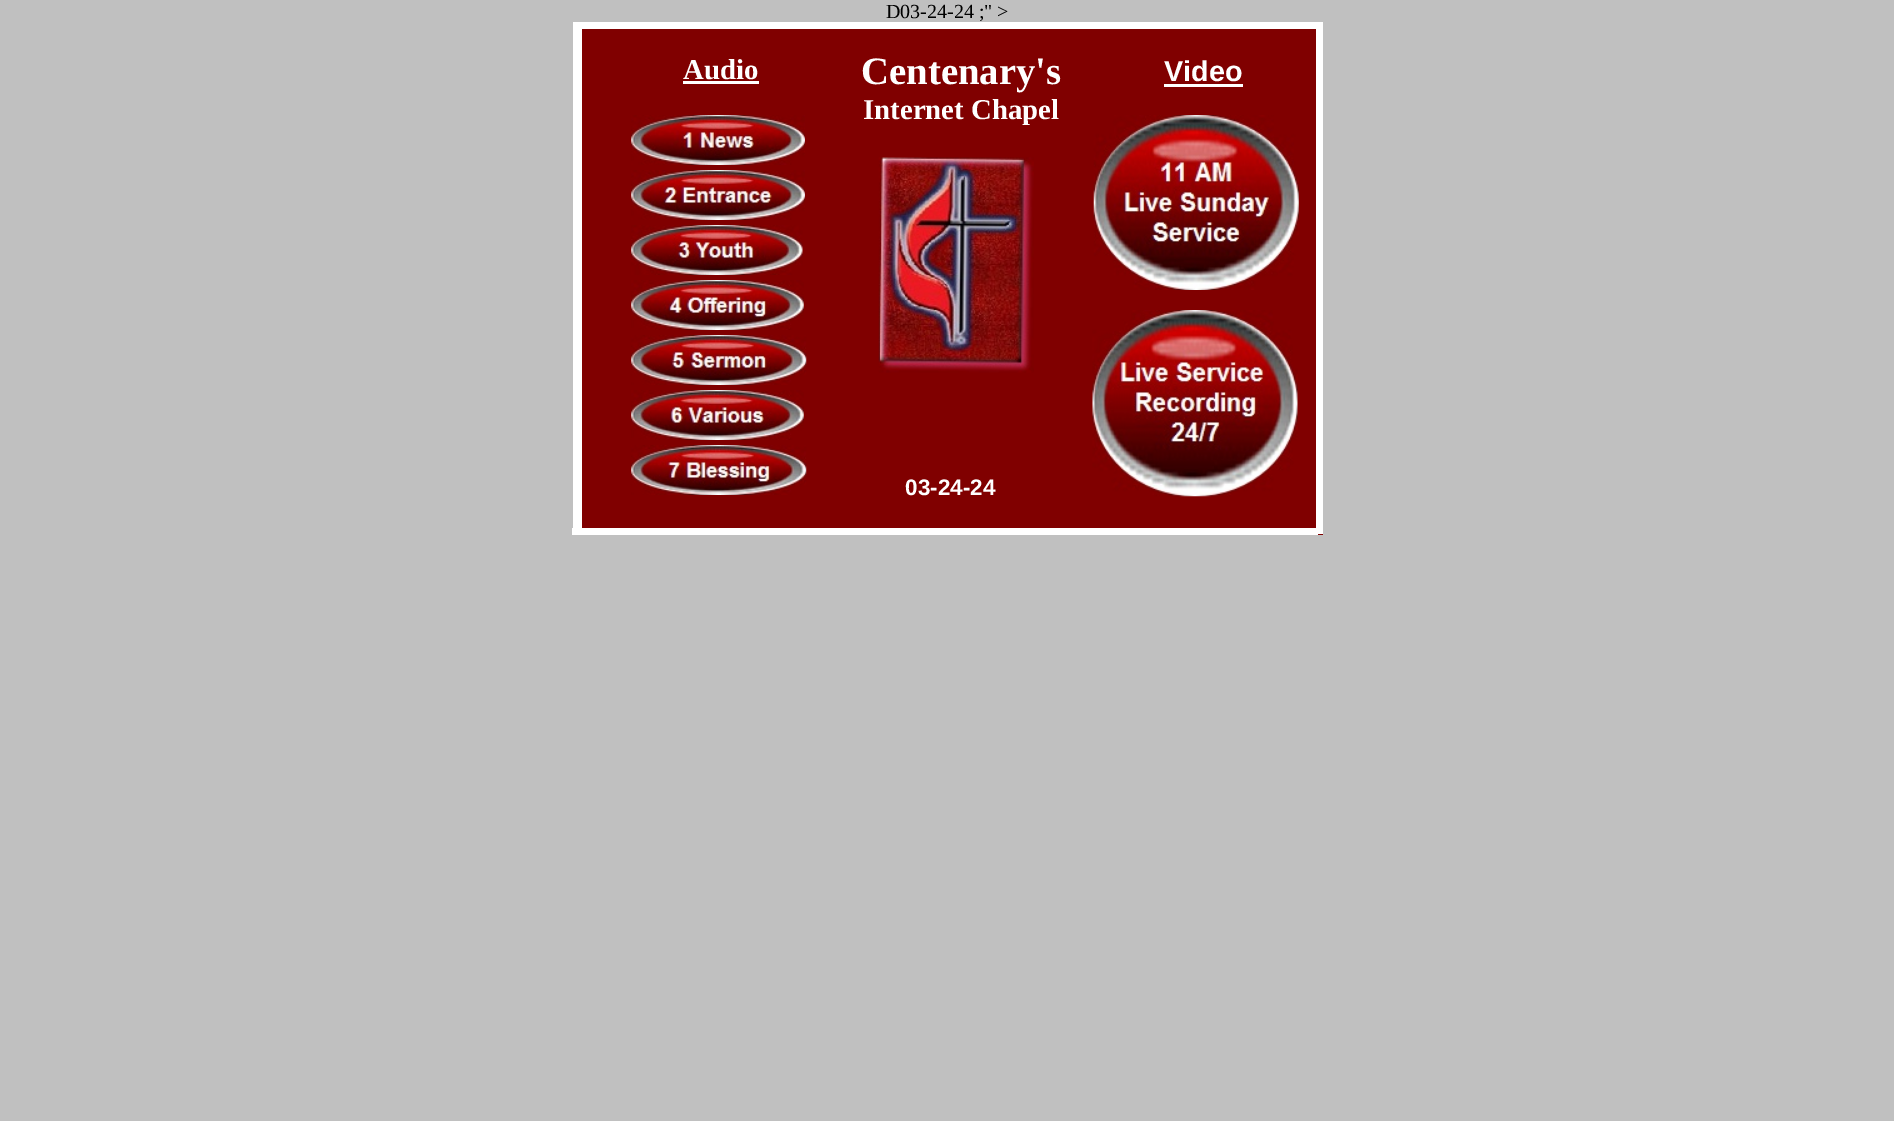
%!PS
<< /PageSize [1894 1121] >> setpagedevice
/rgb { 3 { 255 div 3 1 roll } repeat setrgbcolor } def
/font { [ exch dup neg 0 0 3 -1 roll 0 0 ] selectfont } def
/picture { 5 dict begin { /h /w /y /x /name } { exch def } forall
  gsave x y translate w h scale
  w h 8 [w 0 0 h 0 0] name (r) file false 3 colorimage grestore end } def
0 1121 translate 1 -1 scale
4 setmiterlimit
192 192 192 rgb
0 0 1894 1121 rectfill
[
  [573 22 9 506 255 255 255]
  [582 22 735 7 255 255 255]
  [582 29 741 506 128 0 0]
  [572 528 746 7 255 255 255]
  [1316 22 7 512 255 255 255]
  [683 81 76 3 255 255 255]
  [1164 84 79 3 255 255 255]
] { aload pop rgb rectfill } forall
(img/1.rgb) 631 115 174 50 picture
(img/2.rgb) 878 157 156 216 picture
(img/3.rgb) 1093 115 206 175 picture
(img/4.rgb) 631 170 174 50 picture
(img/5.rgb) 631 225 172 50 picture
(img/6.rgb) 631 280 173 50 picture
(img/7.rgb) 631 335 176 50 picture
(img/8.rgb) 1092 310 206 187 picture
(img/9.rgb) 631 390 173 50 picture
(img/10.rgb) 631 445 176 50 picture
/LiberationSerif-Regular 20 font
0 0 0 rgb
886 18 moveto (D03-24-24 ;" >) show
/LiberationSerif-Bold 28.75 font
255 255 255 rgb
683 79 moveto (Audio) show
/LiberationSerif-Bold 38.75 font
861 84 moveto (Centenary's) show
/LiberationSerif-Bold 28.75 font
863 119 moveto (Internet Chapel) show
/LiberationSans-Bold 28.75 font
1164 81 moveto (Video) show
/LiberationSans-Bold 22.5 font
905 495 moveto (03-24-24) show
showpage
